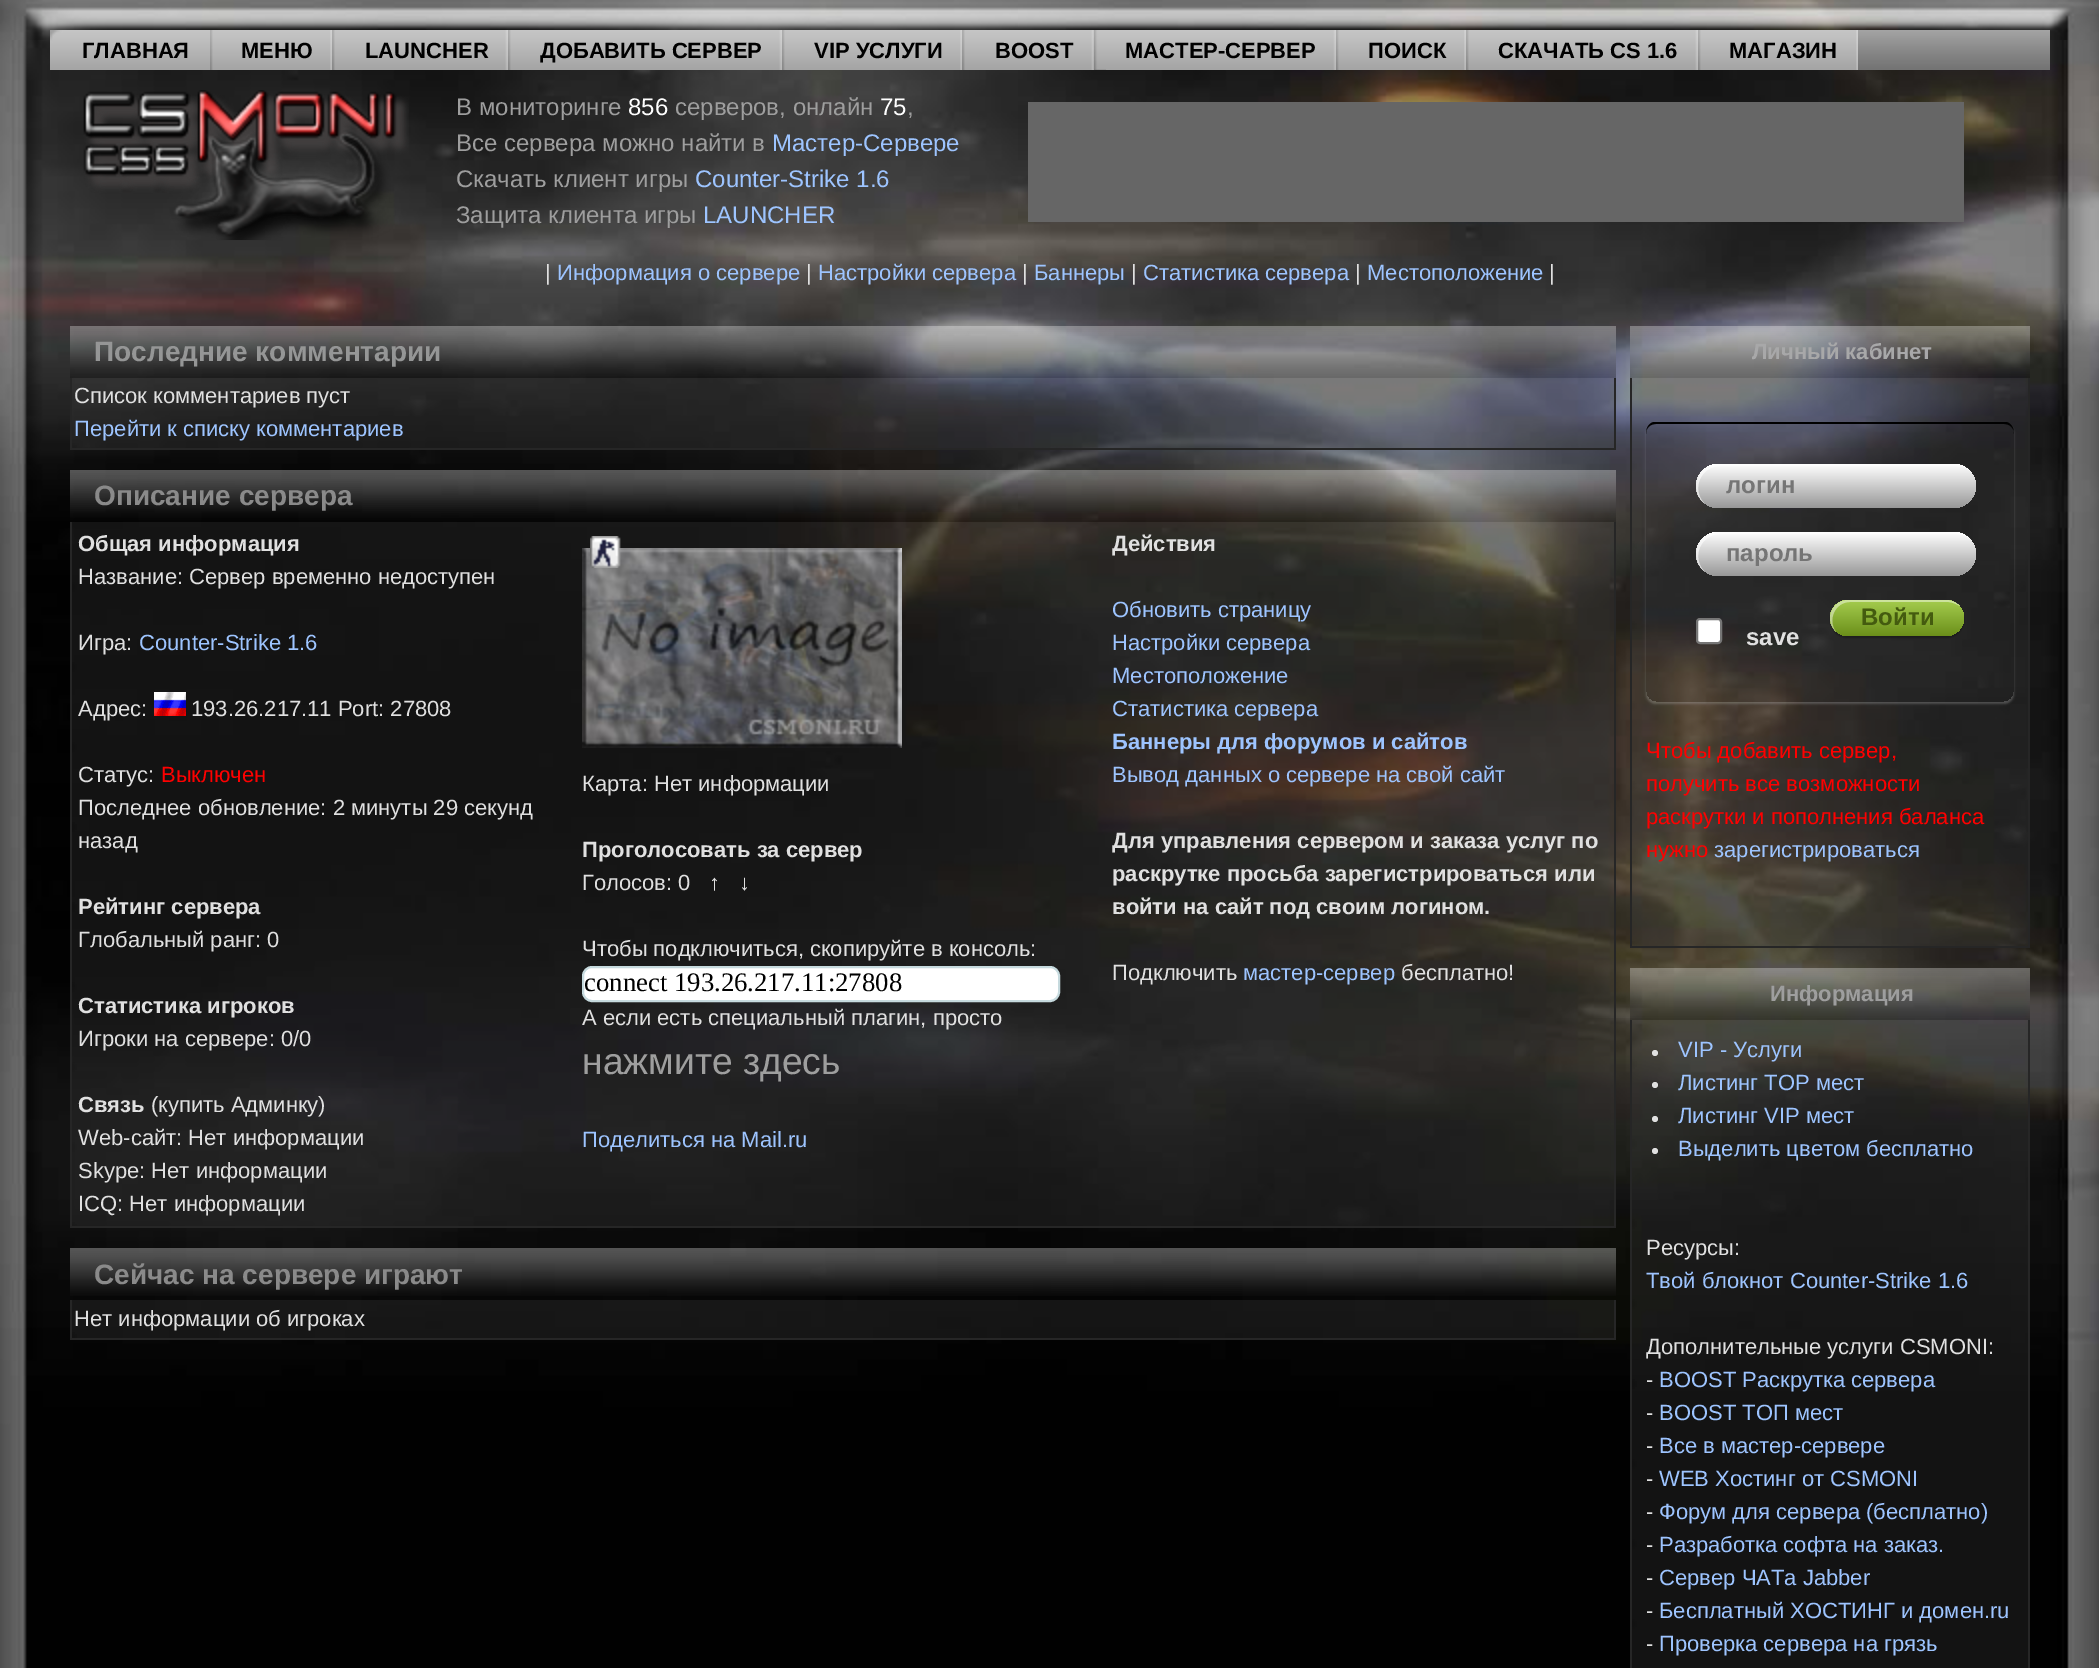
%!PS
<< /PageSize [2099 1668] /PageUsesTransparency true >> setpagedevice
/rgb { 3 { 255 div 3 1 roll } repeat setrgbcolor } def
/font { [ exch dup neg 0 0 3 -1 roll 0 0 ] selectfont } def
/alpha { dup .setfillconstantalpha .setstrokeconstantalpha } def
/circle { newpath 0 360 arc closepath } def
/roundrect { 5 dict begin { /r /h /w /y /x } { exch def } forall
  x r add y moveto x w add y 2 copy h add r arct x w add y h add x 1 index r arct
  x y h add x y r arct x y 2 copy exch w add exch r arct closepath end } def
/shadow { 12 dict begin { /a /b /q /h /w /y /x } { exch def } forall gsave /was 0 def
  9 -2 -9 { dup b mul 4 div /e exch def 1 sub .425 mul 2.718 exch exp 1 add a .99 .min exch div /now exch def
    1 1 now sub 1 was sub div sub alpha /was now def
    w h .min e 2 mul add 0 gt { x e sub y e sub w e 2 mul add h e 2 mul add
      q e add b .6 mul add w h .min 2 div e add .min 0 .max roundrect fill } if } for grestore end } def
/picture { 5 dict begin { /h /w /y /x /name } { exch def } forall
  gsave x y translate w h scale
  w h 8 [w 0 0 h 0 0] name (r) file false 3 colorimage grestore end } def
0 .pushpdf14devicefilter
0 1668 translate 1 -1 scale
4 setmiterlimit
255 255 255 rgb
0 0 2099 1668 rectfill
(img/1.rgb) 0 40 2099 1628 picture
(img/2.rgb) 0 0 2099 40 picture
(img/3.rgb) 50 30 2000 40 picture
(img/4.rgb) 50 30 160 40 picture
(img/5.rgb) 210 30 120 40 picture
(img/6.rgb) 330 30 2 40 picture
(img/7.rgb) 332 30 173 40 picture
(img/8.rgb) 505 30 3 40 picture
(img/9.rgb) 508 30 271 40 picture
(img/8.rgb) 779 30 3 40 picture
(img/10.rgb) 782 30 178 40 picture
(img/6.rgb) 960 30 2 40 picture
(img/11.rgb) 962 30 129 40 picture
(img/8.rgb) 1091 30 3 40 picture
(img/12.rgb) 1093 30 13 40 picture
(img/13.rgb) 1106 30 230 40 picture
(img/14.rgb) 1336 30 128 40 picture
(img/6.rgb) 1464 30 2 40 picture
(img/15.rgb) 1466 30 229 40 picture
(img/8.rgb) 1695 30 3 40 picture
(img/16.rgb) 1698 30 158 40 picture
(img/6.rgb) 1856 30 2 40 picture
(img/17.rgb) 83 90 326 150 picture
102 102 102 rgb
1028 102 936 120 rectfill
(img/18.rgb) 70 326 1546 52 picture
(img/19.rgb) 72 378 1542 70 picture
[
  [1614 378 2 72 38 38 38]
  [70 448 1546 2 38 38 38]
  [70 378 2 72 38 38 38]
] { aload pop rgb rectfill } forall
(img/20.rgb) 70 470 1546 52 picture
(img/21.rgb) 72 522 1542 704 picture
[
  [1614 522 2 706 38 38 38]
  [70 1226 1546 2 38 38 38]
  [70 522 2 706 38 38 38]
] { aload pop rgb rectfill } forall
(img/22.rgb) 154 692 32 24 picture
(img/23.rgb) 582 548 320 200 picture
(img/24.rgb) 590 536 31 32 picture
255 255 255 rgb
583 967 476 34 9 roundrect gsave fill grestore
198 218 222 rgb
2 setlinewidth
stroke
(img/25.rgb) 70 1248 1546 48 picture
(img/26.rgb) 72 1300 1542 38 picture
[
  [1614 1300 2 40 38 38 38]
  [70 1338 1546 2 38 38 38]
  [70 1300 2 40 38 38 38]
] { aload pop rgb rectfill } forall
(img/27.rgb) 1630 326 400 52 picture
(img/28.rgb) 1632 378 396 568 picture
[
  [2028 378 2 570 38 38 38]
  [1630 946 400 2 38 38 38]
  [1630 378 2 570 38 38 38]
] { aload pop rgb rectfill } forall
gsave
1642 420 moveto 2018 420 lineto 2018 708 lineto 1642 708 lineto closepath 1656 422 moveto 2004 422 lineto 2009.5 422 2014 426.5 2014 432 curveto 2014 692 lineto 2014 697.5 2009.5 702 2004 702 curveto 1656 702 lineto 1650.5 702 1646 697.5 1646 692 curveto 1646 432 lineto 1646 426.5 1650.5 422 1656 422 curveto closepath eoclip newpath
255 255 255 rgb
1646 424 368 280 10 1 0.2 shadow
grestore
0 0 0 rgb
1656 424 moveto 2004 424 lineto 2010 424 2014 428 2014 434 curveto 2014 429 2012 423 2006 422 curveto 1654 422 lineto 1648 423 1646 429 1646 434 curveto 1646 428 1650 424 1656 424 curveto closepath fill
gsave 1696 464 280 44 22 roundrect clip newpath
<< /ShadingType 2 /ColorSpace /DeviceRGB /Coords [1836 464 1836 508] /Extend [true true] /Function << /FunctionType 2 /Domain [0 1] /C0 [1 1 1] /C1 [0.596 0.596 0.596] /N 1 >> >> shfill grestore
0.6 alpha
255 255 255 rgb
1720 466 moveto 1956 466 lineto 1962 466 1967 468 1971 472 curveto 1967 467 1961 464 1954 464 curveto 1718 464 lineto 1706 464 1696 474 1696 486 curveto 1696 493 1699 499 1704 503 curveto 1691 489 1701 466 1720 466 curveto closepath fill
1 alpha
gsave 1696 532 280 44 22 roundrect clip newpath
<< /ShadingType 2 /ColorSpace /DeviceRGB /Coords [1836 532 1836 576] /Extend [true true] /Function << /FunctionType 2 /Domain [0 1] /C0 [1 1 1] /C1 [0.596 0.596 0.596] /N 1 >> >> shfill grestore
0.6 alpha
1720 534 moveto 1956 534 lineto 1962 534 1967 536 1971 540 curveto 1967 535 1961 532 1954 532 curveto 1718 532 lineto 1706 532 1696 542 1696 554 curveto 1696 561 1699 567 1704 571 curveto 1691 557 1701 534 1720 534 curveto closepath fill
1 alpha
0 0 0 rgb
1830 602 134 36 18 1 0.3 shadow
gsave 1830 600 134 36 18 roundrect clip newpath
<< /ShadingType 2 /ColorSpace /DeviceRGB /Coords [1897 600 1897 636] /Extend [true true] /Function << /FunctionType 2 /Domain [0 1] /C0 [0.647 0.804 0.306] /C1 [0.42 0.561 0.102] /N 1 >> >> shfill grestore
0.45 alpha
255 255 255 rgb
1850 602 moveto 1948 602 lineto 1952 602 1956 604 1960 606 curveto 1956 602 1951 600 1946 600 curveto 1848 600 lineto 1838 600 1830 608 1830 618 curveto 1830 623 1832 628 1836 632 curveto 1827 620 1835 602 1850 602 curveto closepath fill
1 alpha
1697 619 24 24 3 roundrect gsave fill grestore
118 118 118 rgb
stroke
(img/29.rgb) 1630 968 400 52 picture
(img/30.rgb) 1632 1020 396 648 picture
38 38 38 rgb
2028 1020 2 648 rectfill
1630 1020 2 648 rectfill
224 224 224 rgb
1655 1053 3 circle fill
1655 1085 3 circle fill
1655 1119 3 circle fill
1655 1151 3 circle fill
/LiberationSans-Bold 22 font
0 0 0 rgb
[
  [(ГЛАВНАЯ) 82 58]
  [(МЕНЮ) 241 58]
  [(LAUNCHER) 365 58]
  [(ДОБАВИТЬ СЕРВЕР) 540 58]
  [(VIP УСЛУГИ) 814 58]
  [(BOOST) 995 58]
  [(МАСТЕР-СЕРВЕР) 1125 58]
  [(ПОИСК) 1368 58]
  [(СКАЧАТЬ CS 1.6) 1498 58]
  [(МАГАЗИН) 1729 58]
] { aload pop moveto show } forall
/LiberationSans-Regular 24 font
158 158 158 rgb
456 115 moveto (В мониторинге) show
255 255 255 rgb
628 115 moveto (856) show
158 158 158 rgb
675 115 moveto (серверов, онлайн) show
255 255 255 rgb
880 115 moveto (75) show
158 158 158 rgb
907 115 moveto (,) show
456 151 moveto (Все сервера можно найти в) show
157 196 255 rgb
772 151 moveto (Мастер-Сервере) show
158 158 158 rgb
456 187 moveto (Скачать клиент игры) show
157 196 255 rgb
695 187 moveto (Counter-Strike 1.6) show
158 158 158 rgb
456 223 moveto (Защита клиента игры) show
157 196 255 rgb
703 223 moveto (LAUNCHER) show
/LiberationSans-Regular 22 font
224 224 224 rgb
545 280 moveto (|) show
157 196 255 rgb
557 280 moveto (Информация о сервере) show
224 224 224 rgb
806 280 moveto (|) show
157 196 255 rgb
818 280 moveto (Настройки сервера) show
224 224 224 rgb
1022 280 moveto (|) show
157 196 255 rgb
1034 280 moveto (Баннеры) show
224 224 224 rgb
1131 280 moveto (|) show
157 196 255 rgb
1143 280 moveto (Статистика сервера) show
224 224 224 rgb
1355 280 moveto (|) show
157 196 255 rgb
1367 280 moveto (Местоположение) show
224 224 224 rgb
1549 280 moveto (|) show
/LiberationSans-Bold 28 font
149 150 150 rgb
94 361 moveto (Последние комментарии) show
/LiberationSans-Regular 22 font
224 224 224 rgb
74 403 moveto (Список комментариев пуст) show
157 196 255 rgb
74 436 moveto (Перейти к списку комментариев) show
/LiberationSans-Bold 28 font
138 138 138 rgb
94 505 moveto (Описание сервера) show
/LiberationSans-Bold 22 font
224 224 224 rgb
78 551 moveto (Общая информация) show
/LiberationSans-Regular 22 font
78 584 moveto (Название: Сервер временно недоступен) show
78 650 moveto (Игра:) show
157 196 255 rgb
139 650 moveto (Counter-Strike 1.6) show
224 224 224 rgb
[
  [(Адрес:) 78 716]
  [(193.26.217.11 Port: 27808) 191 716]
  [(Статус:) 78 782]
] { aload pop moveto show } forall
255 0 0 rgb
161 782 moveto (Выключен) show
224 224 224 rgb
78 815 moveto (Последнее обновление: 2 минуты 29 секунд) show
78 848 moveto (назад) show
/LiberationSans-Bold 22 font
78 914 moveto (Рейтинг сервера) show
/LiberationSans-Regular 22 font
78 947 moveto (Глобальный ранг: 0) show
/LiberationSans-Bold 22 font
78 1013 moveto (Статистика игроков) show
/LiberationSans-Regular 22 font
78 1046 moveto (Игроки на сервере: 0/0) show
/LiberationSans-Bold 22 font
78 1112 moveto (Связь) show
/LiberationSans-Regular 22 font
[
  [(\(купить Админку\)) 151 1112]
  [(Web-сайт: Нет информации) 78 1145]
  [(Skype: Нет информации) 78 1178]
  [(ICQ: Нет информации) 78 1211]
  [(Карта: Нет информации) 582 791]
] { aload pop moveto show } forall
/LiberationSans-Bold 22 font
582 857 moveto (Проголосовать за сервер) show
/LiberationSans-Regular 22 font
582 890 moveto (Голосов: 0) show
/LiberationSans-Bold 22 font
709 890 moveto (↑) show
739 890 moveto (↓) show
/LiberationSans-Regular 22 font
582 956 moveto (Чтобы подключиться, скопируйте в консоль:) show
/LiberationSerif-Regular 26.75 font
0 0 0 rgb
584 991 moveto (connect 193.26.217.11:27808) show
/LiberationSans-Regular 22 font
224 224 224 rgb
582 1025 moveto (А если есть специальный плагин, просто) show
/LiberationSans-Regular 37.25 font
158 158 158 rgb
582 1074 moveto (нажмите здесь) show
/LiberationSans-Regular 22 font
157 196 255 rgb
582 1147 moveto (Поделиться на Mail.ru) show
/LiberationSans-Bold 22 font
224 224 224 rgb
1112 551 moveto (Действия) show
/LiberationSans-Regular 22 font
157 196 255 rgb
[
  [(Обновить страницу) 1112 617]
  [(Настройки сервера) 1112 650]
  [(Местоположение) 1112 683]
  [(Статистика сервера) 1112 716]
] { aload pop moveto show } forall
/LiberationSans-Bold 22 font
1112 749 moveto (Баннеры для форумов и сайтов) show
/LiberationSans-Regular 22 font
1112 782 moveto (Вывод данных о сервере на свой сайт) show
/LiberationSans-Bold 22 font
224 224 224 rgb
[
  [(Для управления сервером и заказа услуг по) 1112 848]
  [(раскрутке просьба зарегистрироваться или) 1112 881]
  [(войти на сайт под своим логином.) 1112 914]
] { aload pop moveto show } forall
/LiberationSans-Regular 22 font
1112 980 moveto (Подключить) show
157 196 255 rgb
1243 980 moveto (мастер-сервер) show
224 224 224 rgb
1401 980 moveto (бесплатно!) show
/LiberationSans-Bold 28 font
138 138 138 rgb
94 1284 moveto (Сейчас на сервере играют) show
/LiberationSans-Regular 22 font
224 224 224 rgb
74 1326 moveto (Нет информации об игроках) show
/LiberationSans-Bold 22 font
168 168 169 rgb
1752 359 moveto (Личный кабинет) show
/LiberationSans-Bold 24 font
117 117 117 rgb
1726 493 moveto (логин) show
1726 561 moveto (пароль) show
68 91 15 rgb
1861 625 moveto (Войти) show
224 224 224 rgb
1746 645 moveto (save) show
/LiberationSans-Regular 22 font
255 0 0 rgb
[
  [(Чтобы добавить сервер,) 1646 758]
  [(получить все возможности) 1646 791]
  [(раскрутки и пополнения баланса) 1646 824]
  [(нужно) 1646 857]
] { aload pop moveto show } forall
157 196 255 rgb
1714 857 moveto (зарегистрироваться) show
/LiberationSans-Bold 22 font
158 158 158 rgb
1770 1001 moveto (Информация) show
/LiberationSans-Regular 22 font
157 196 255 rgb
[
  [(VIP - Услуги) 1678 1057]
  [(Листинг TOP мест) 1678 1090]
  [(Листинг VIP мест) 1678 1123]
  [(Выделить цветом бесплатно) 1678 1156]
] { aload pop moveto show } forall
224 224 224 rgb
1646 1255 moveto (Ресурсы:) show
157 196 255 rgb
1646 1288 moveto (Твой блокнот Counter-Strike 1.6) show
224 224 224 rgb
1646 1354 moveto (Дополнительные услуги CSMONI:) show
1646 1387 moveto (-) show
157 196 255 rgb
1659 1387 moveto (BOOST Раскрутка сервера) show
224 224 224 rgb
1646 1420 moveto (-) show
157 196 255 rgb
1659 1420 moveto (BOOST ТОП мест) show
224 224 224 rgb
1646 1453 moveto (-) show
157 196 255 rgb
1659 1453 moveto (Все в мастер-сервере) show
224 224 224 rgb
1646 1486 moveto (-) show
157 196 255 rgb
1659 1486 moveto (WEB Хостинг от CSMONI) show
224 224 224 rgb
1646 1519 moveto (-) show
157 196 255 rgb
1659 1519 moveto (Форум для сервера \(бесплатно\)) show
224 224 224 rgb
1646 1552 moveto (-) show
157 196 255 rgb
1659 1552 moveto (Разработка софта на заказ.) show
224 224 224 rgb
1646 1585 moveto (-) show
157 196 255 rgb
1659 1585 moveto (Сервер ЧАТа Jabber) show
224 224 224 rgb
1646 1618 moveto (-) show
157 196 255 rgb
1659 1618 moveto (Бесплатный ХОСТИНГ и домен.ru) show
224 224 224 rgb
1646 1651 moveto (-) show
157 196 255 rgb
1659 1651 moveto (Проверка сервера на грязь) show
.poppdf14devicefilter showpage
